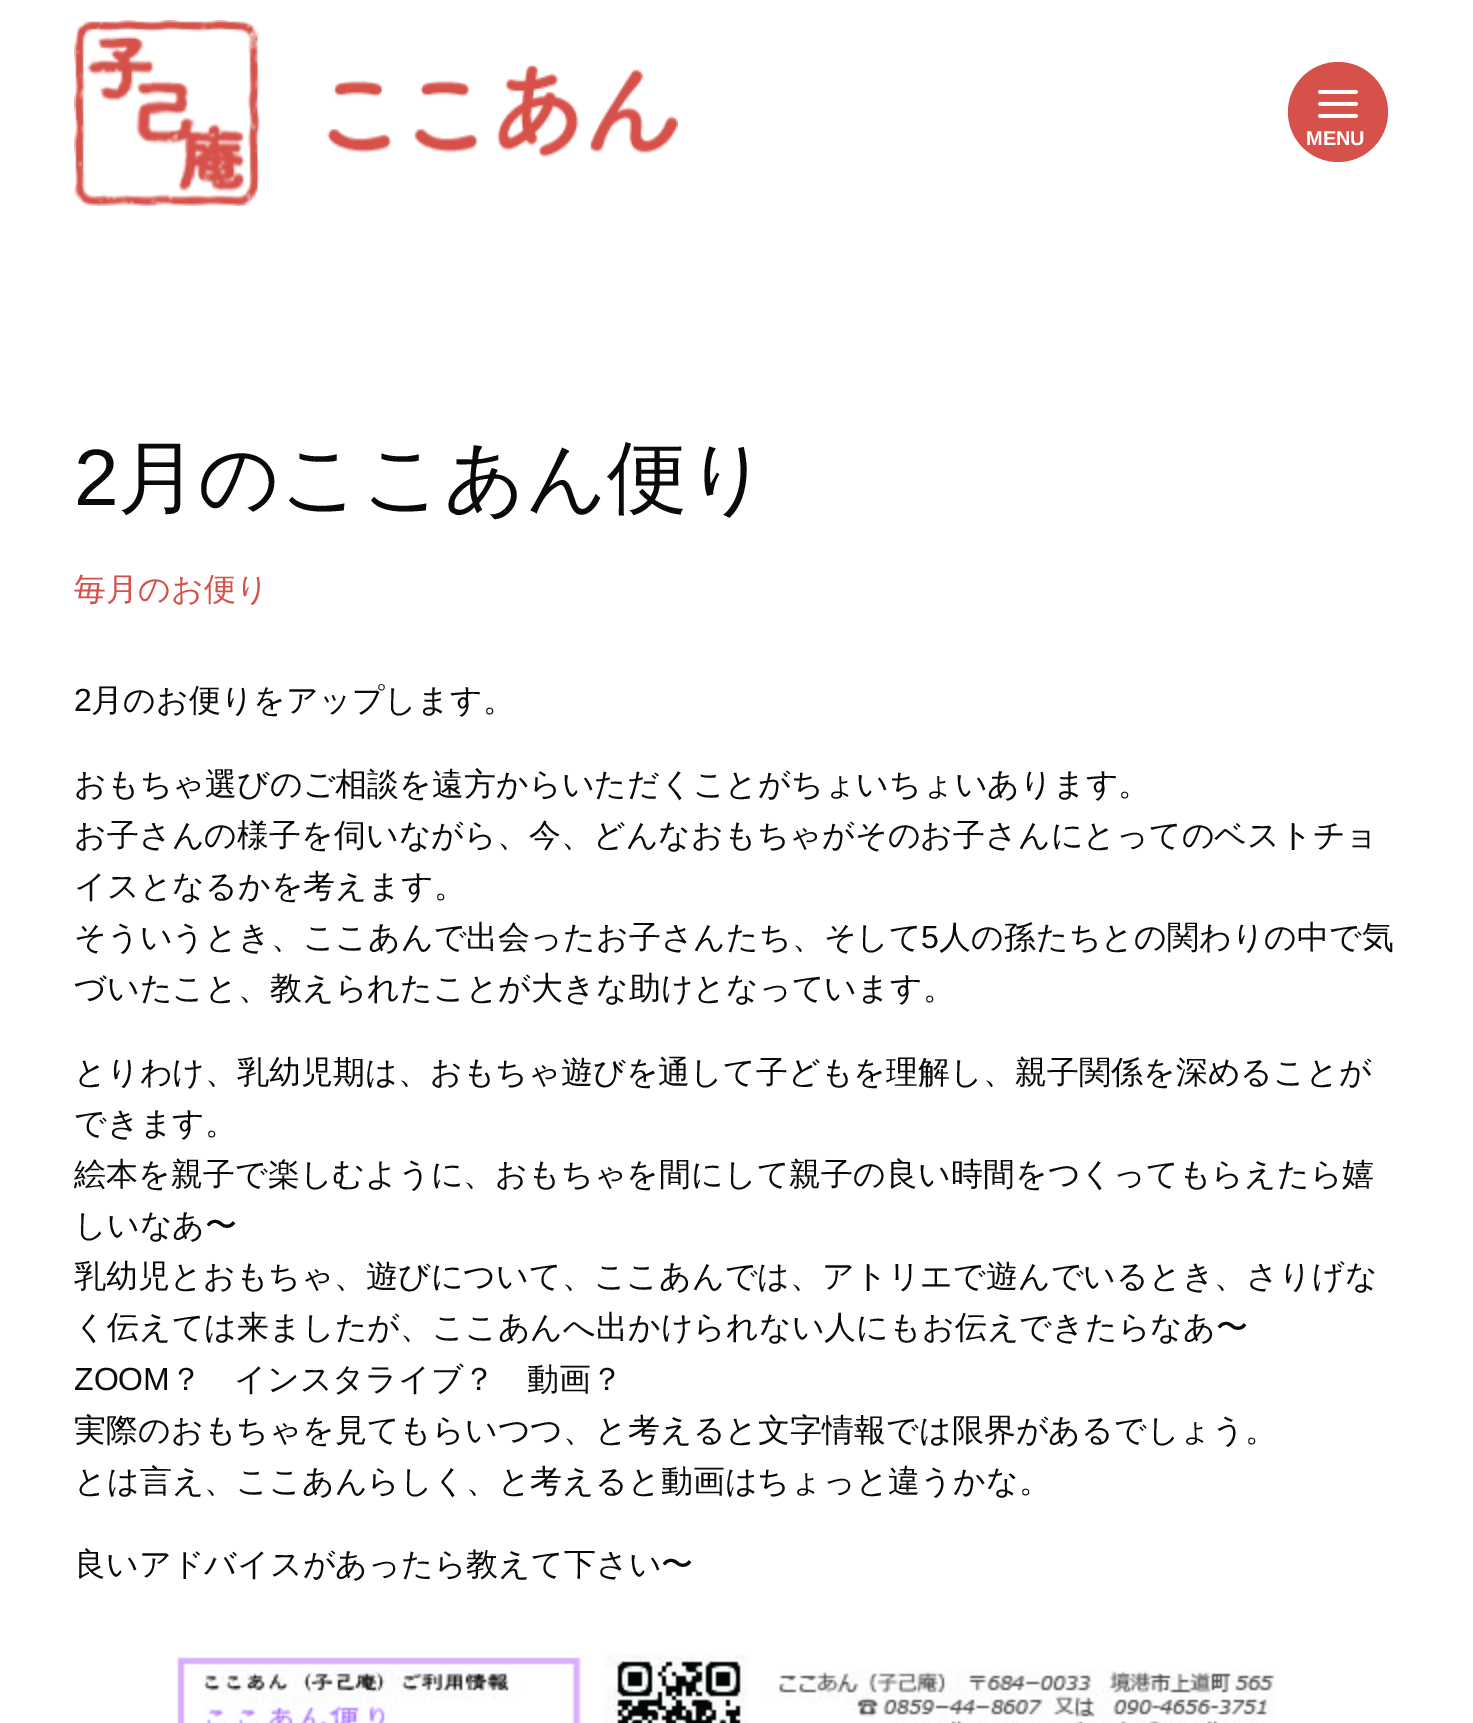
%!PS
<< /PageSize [1473 1723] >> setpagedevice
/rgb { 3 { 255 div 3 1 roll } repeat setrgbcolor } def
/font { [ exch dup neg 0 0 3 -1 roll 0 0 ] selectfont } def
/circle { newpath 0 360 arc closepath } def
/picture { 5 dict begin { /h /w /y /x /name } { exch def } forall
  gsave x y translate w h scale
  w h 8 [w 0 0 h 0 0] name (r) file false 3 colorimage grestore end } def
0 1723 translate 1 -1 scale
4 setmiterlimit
255 255 255 rgb
0 0 1473 1723 rectfill
(img/1.rgb) 74 20 604 186 picture
213 81 74 rgb
1338 112 50 circle fill
(img/2.rgb) 1318 89 40 29 picture
(img/3.rgb) 176 1654 1100 69 picture
/LiberationSans-Bold 20 font
255 255 255 rgb
1306 145 moveto (MENU) show
/LiberationSans-Regular 80 font
10 10 10 rgb
74 505 moveto (2) show
/WenQuanYiZenHei-Medium 80 font
118 505 moveto (月のここあん便り) show
/WenQuanYiZenHei-Medium 32 font
213 81 74 rgb
74 600 moveto (毎月のお便り) show
/LiberationSans-Regular 32 font
10 10 10 rgb
74 711 moveto (2) show
/WenQuanYiZenHei-Medium 32 font
[
  [(月のお便りをアップします。) 91 711]
  [(おもちゃ選びのご相談を遠方からいただくことがちょいちょいあります。) 74 795]
  [(お子さんの様子を伺いながら、今、どんなおもちゃがそのお子さんにとってのベストチョ) 74 846]
  [(イスとなるかを考えます。) 74 897]
  [(そういうとき、ここあんで出会ったお子さんたち、そして) 74 948]
] { aload pop moveto show } forall
/LiberationSans-Regular 32 font
921 948 moveto (5) show
/WenQuanYiZenHei-Medium 32 font
[
  [(人の孫たちとの関わりの中で気) 939 948]
  [(づいたこと、教えられたことが大きな助けとなっています。) 74 999]
  [(とりわけ、乳幼児期は、おもちゃ遊びを通して子どもを理解し、親子関係を深めることが) 74 1083]
  [(できます。) 74 1134]
  [(絵本を親子で楽しむように、おもちゃを間にして親子の良い時間をつくってもらえたら嬉) 74 1185]
  [(しいなあ〜) 74 1236]
  [(乳幼児とおもちゃ、遊びについて、ここあんでは、アトリエで遊んでいるとき、さりげな) 74 1287]
  [(く伝えては来ましたが、ここあんへ出かけられない人にもお伝えできたらなあ〜) 74 1338]
] { aload pop moveto show } forall
/LiberationSans-Regular 32 font
74 1390 moveto (ZOOM) show
/WenQuanYiZenHei-Medium 32 font
[
  [(？　インスタライブ？　動画？) 170 1390]
  [(実際のおもちゃを見てもらいつつ、と考えると文字情報では限界があるでしょう。) 74 1441]
  [(とは言え、ここあんらしく、と考えると動画はちょっと違うかな。) 74 1492]
  [(良いアドバイスがあったら教えて下さい〜) 74 1575]
] { aload pop moveto show } forall
showpage
